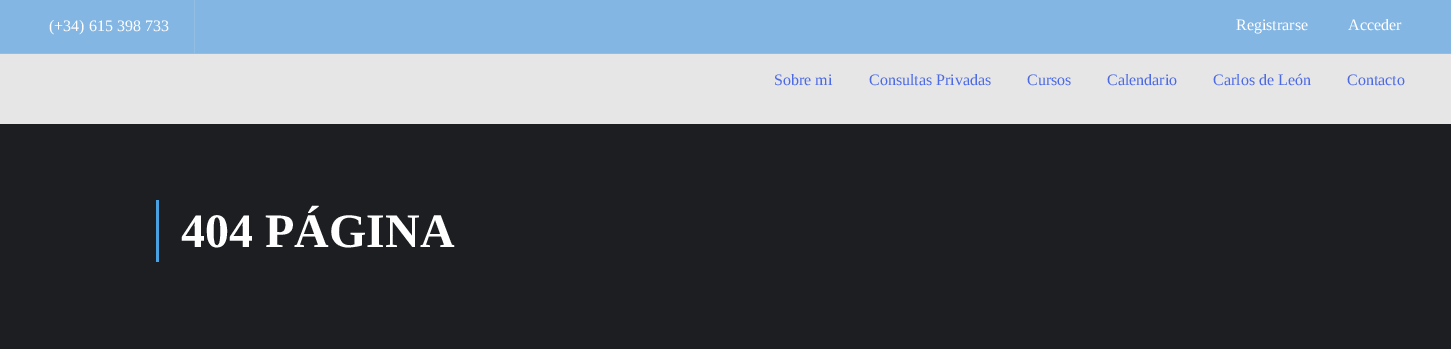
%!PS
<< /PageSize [1451 349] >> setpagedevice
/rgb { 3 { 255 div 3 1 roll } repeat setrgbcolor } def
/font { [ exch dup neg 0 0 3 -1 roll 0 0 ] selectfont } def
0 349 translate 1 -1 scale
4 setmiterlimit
28 30 34 rgb
0 0 1451 349 rectfill
[
  [0 54 1451 70 230 230 231]
  [0 0 1451 53 132 182 227]
  [0 53 1451 1 147 190 228]
  [194 0 1 53 147 190 228]
  [156 200 3 62 74 161 226]
] { aload pop rgb rectfill } forall
/LiberationSerif-Regular 16 font
255 255 255 rgb
[
  [(\(+34\) 615 398 733) 49 31]
  [(Registrarse) 1236 30]
  [(Acceder) 1348 30]
] { aload pop moveto show } forall
75 106 227 rgb
[
  [(Sobre mi) 774 85]
  [(Consultas Privadas) 869 85]
  [(Cursos) 1027 85]
  [(Calendario) 1107 85]
  [(Carlos de León) 1213 85]
  [(Contacto) 1347 85]
] { aload pop moveto show } forall
/LiberationSerif-Bold 48 font
255 255 255 rgb
181 247 moveto (404 PÁGINA) show
showpage
